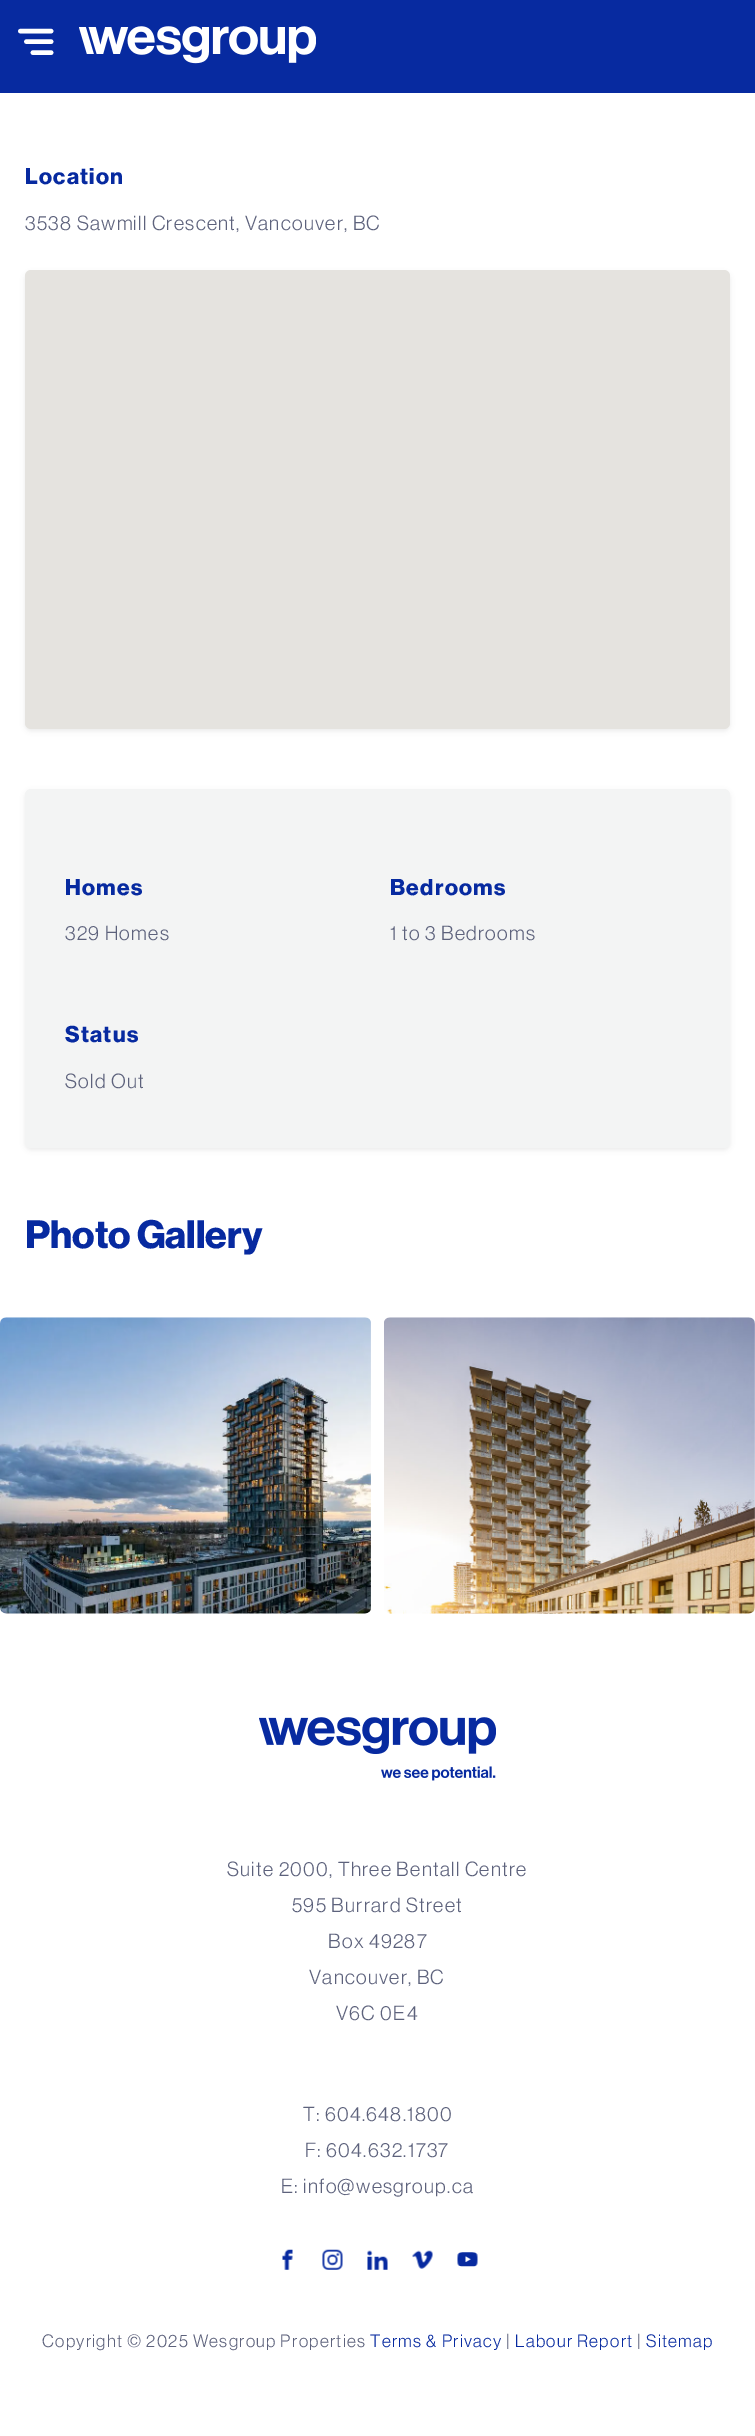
%!PS
<< /PageSize [755 2436] /PageUsesTransparency true >> setpagedevice
/rgb { 3 { 255 div 3 1 roll } repeat setrgbcolor } def
/font { [ exch dup neg 0 0 3 -1 roll 0 0 ] selectfont } def
/alpha { dup .setfillconstantalpha .setstrokeconstantalpha } def
/roundrect { 5 dict begin { /r /h /w /y /x } { exch def } forall
  x r add y moveto x w add y 2 copy h add r arct x w add y h add x 1 index r arct
  x y h add x y r arct x y 2 copy exch w add exch r arct closepath end } def
/shadow { 12 dict begin { /a /b /q /h /w /y /x } { exch def } forall gsave /was 0 def
  9 -2 -9 { dup b mul 4 div /e exch def 1 sub .425 mul 2.718 exch exp 1 add a .99 .min exch div /now exch def
    1 1 now sub 1 was sub div sub alpha /was now def
    w h .min e 2 mul add 0 gt { x e sub y e sub w e 2 mul add h e 2 mul add
      q e add b .6 mul add w h .min 2 div e add .min 0 .max roundrect fill } if } for grestore end } def
/picture { 5 dict begin { /h /w /y /x /name } { exch def } forall
  gsave x y translate w h scale
  w h 8 [w 0 0 h 0 0] name (r) file false 3 colorimage grestore end } def
0 .pushpdf14devicefilter
0 2436 translate 1 -1 scale
4 setmiterlimit
255 255 255 rgb
0 0 755 2436 rectfill
7 42 160 rgb
0 0 755 93 rectfill
255 255 255 rgb
4.6 setlinewidth
1 setlinecap
1 setlinejoin
51 31 moveto 20.5 31 lineto 51 41.5 moveto 26.5 41.5 lineto 51 52.5 moveto 33 52.5 lineto stroke
(img/1.rgb) 79 26 237 38 picture
0 0 0 rgb
25 273 705 458 6 2.5 0.07 shadow
229 227 223 rgb
25 270 705 459 6 roundrect fill
0 0 0 rgb
25 791 705 359 6 2.5 0.07 shadow
243 244 244 rgb
25 789 705 359 6 roundrect fill
(img/2.rgb) 0 1317 371 297 picture
(img/3.rgb) 384 1317 371 297 picture
(img/4.rgb) 259 1717 237 64 picture
(img/5.rgb) 282 2249 11 21 picture
(img/6.rgb) 322 2249 21 21 picture
(img/7.rgb) 367 2250 21 20 picture
(img/8.rgb) 412 2250 21 19 picture
(img/9.rgb) 457 2252 21 15 picture
/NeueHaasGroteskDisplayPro-Bold 22.5 font
7 42 160 rgb
25 184 moveto 1.25 0 (Location) ashow
/NeueHaasGroteskDisplayPro-Regular 20 font
93 98 124 rgb
25 230 moveto 1.25 0 (3538 Sawmill Crescent, Vancouver, BC) ashow
/NeueHaasGroteskDisplayPro-Bold 22.5 font
7 42 160 rgb
65 895 moveto 1.25 0 (Homes) ashow
/NeueHaasGroteskDisplayPro-Regular 20 font
93 98 124 rgb
65 940 moveto 1.25 0 (329 Homes) ashow
/NeueHaasGroteskDisplayPro-Bold 22.5 font
7 42 160 rgb
390 895 moveto 1.25 0 (Bedrooms) ashow
/NeueHaasGroteskDisplayPro-Regular 20 font
93 98 124 rgb
390 940 moveto 1.25 0 (1 to 3 Bedrooms) ashow
/NeueHaasGroteskDisplayPro-Bold 22.5 font
7 42 160 rgb
65 1042 moveto 1.25 0 (Status) ashow
/NeueHaasGroteskDisplayPro-Regular 20 font
93 98 124 rgb
65 1088 moveto 1.25 0 (Sold Out) ashow
/NeueHaasGroteskDisplayPro-Bold 38.75 font
7 42 160 rgb
25 1248 moveto (Photo Gallery) show
/NeueHaasGroteskDisplayPro-Regular 20 font
93 98 124 rgb
227 1876 moveto 1.25 0 (Suite 2000, Three Bentall Centre) ashow
292 1912 moveto 1.25 0 (595 Burrard Street) ashow
328 1948 moveto 1.25 0 (Box 49287) ashow
309 1984 moveto 1.25 0 (Vancouver, BC) ashow
336 2020 moveto 1.25 0 (V6C 0E4) ashow
303 2121 moveto 1.25 0 (T: 604.648.1800) ashow
305 2157 moveto 1.25 0 (F: 604.632.1737) ashow
281 2193 moveto 1.25 0 (E: info@wesgroup.ca) ashow
/NeueHaasGroteskDisplayPro-Regular 17.5 font
42 2347 moveto 1.25 0 (Copyright © 2025 Wesgroup Properties) ashow
7 42 160 rgb
370 2347 moveto 1.25 0 (Terms & Privacy) ashow
93 98 124 rgb
506 2347 moveto 1.25 0 (|) ashow
7 42 160 rgb
515 2347 moveto 1.25 0 (Labour Report) ashow
93 98 124 rgb
637 2347 moveto 1.25 0 (|) ashow
7 42 160 rgb
646 2347 moveto 1.25 0 (Sitemap) ashow
.poppdf14devicefilter showpage
